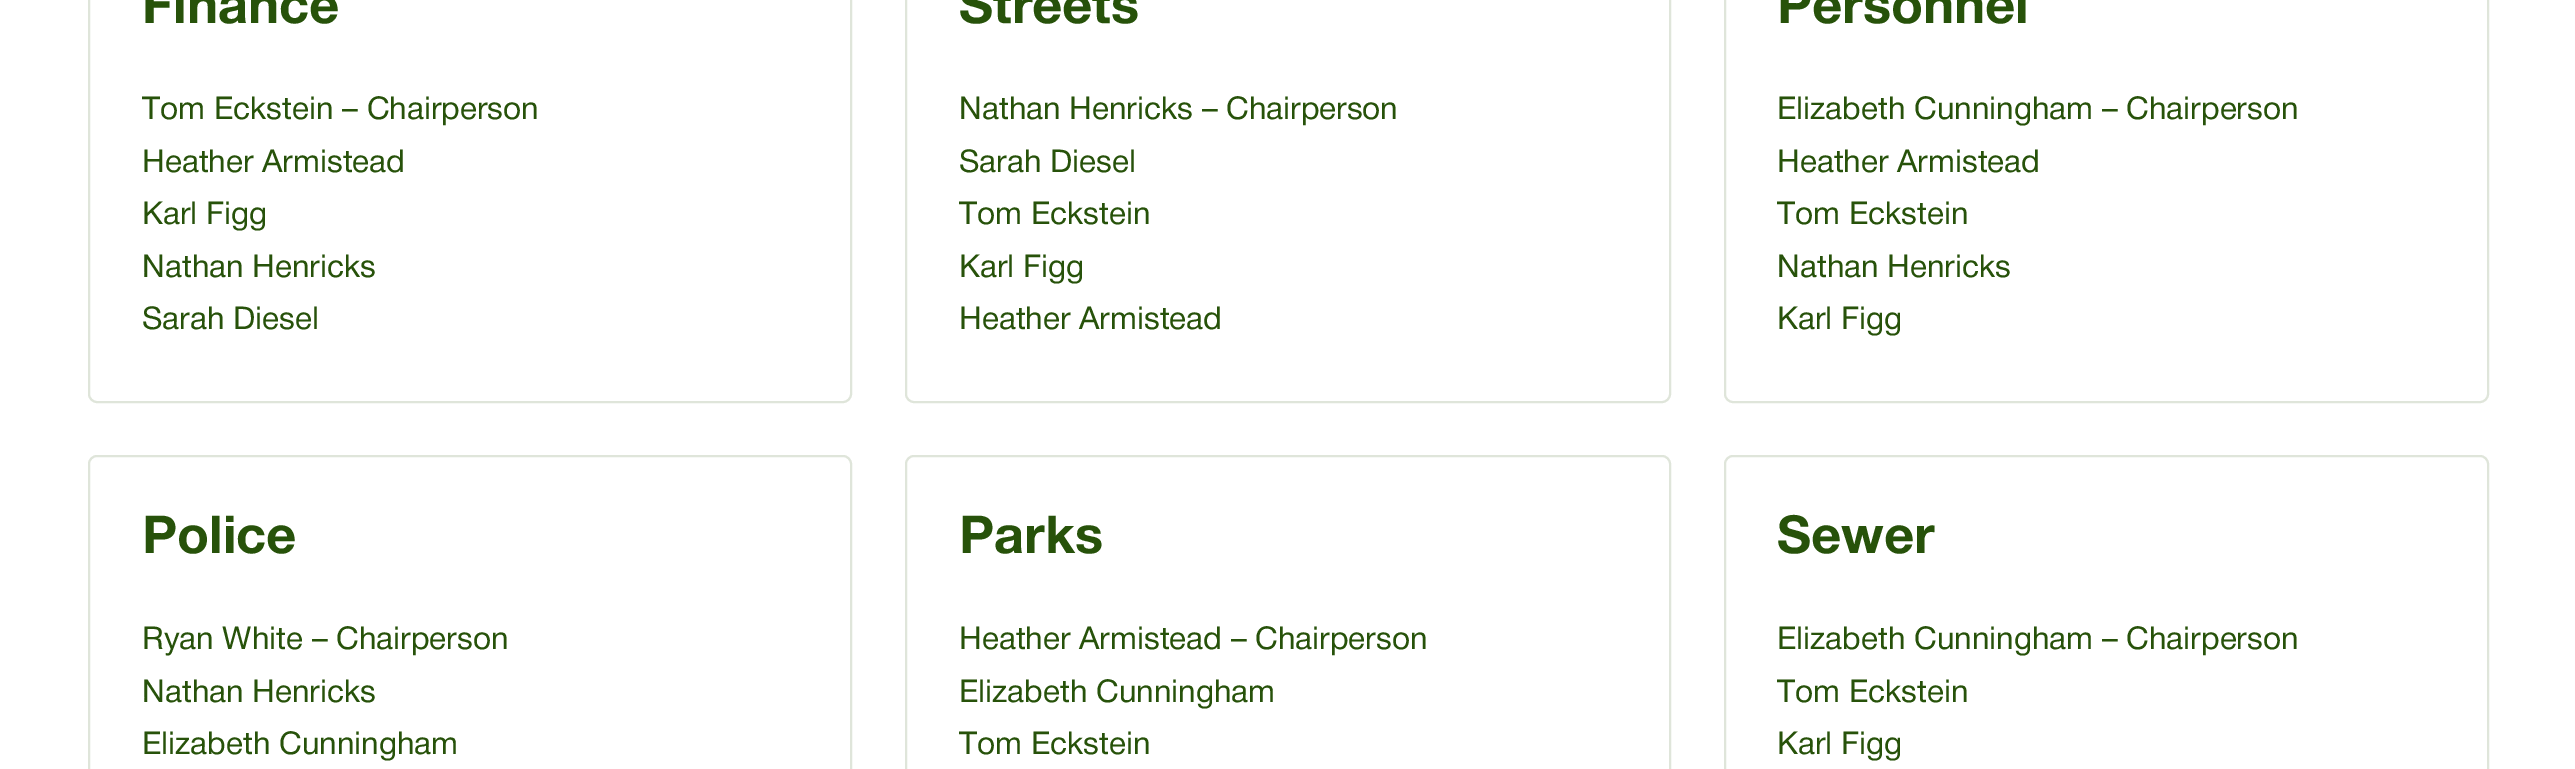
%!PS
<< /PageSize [2575 769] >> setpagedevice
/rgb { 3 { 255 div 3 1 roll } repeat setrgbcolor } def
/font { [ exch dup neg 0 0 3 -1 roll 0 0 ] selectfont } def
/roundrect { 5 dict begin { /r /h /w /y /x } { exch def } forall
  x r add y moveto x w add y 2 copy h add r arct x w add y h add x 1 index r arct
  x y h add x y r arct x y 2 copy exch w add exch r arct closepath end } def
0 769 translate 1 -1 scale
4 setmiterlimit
255 255 255 rgb
0 0 2575 769 rectfill
223 229 218 rgb
2 setlinewidth
89 -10 762 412 8 roundrect stroke
906 -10 764 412 8 roundrect stroke
1725 -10 763 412 8 roundrect stroke
89 456 762 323 8 roundrect stroke
906 456 764 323 8 roundrect stroke
1725 456 763 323 8 roundrect stroke
/HelveticaNeue-Bold 52.5 font
39 82 10 rgb
142 23 moveto (Finance) show
/HelveticaNeue-Regular 31.5 font
[
  [(Tom Eckstein – Chairperson) 142 119]
  [(Heather Armistead) 142 172]
  [(Karl Figg) 142 224]
  [(Nathan Henricks) 142 277]
  [(Sarah Diesel) 142 329]
] { aload pop moveto show } forall
/HelveticaNeue-Bold 52.5 font
959 23 moveto (Streets) show
/HelveticaNeue-Regular 31.5 font
[
  [(Nathan Henricks – Chairperson) 959 119]
  [(Sarah Diesel) 959 172]
  [(Tom Eckstein) 959 224]
  [(Karl Figg) 959 277]
  [(Heather Armistead) 959 329]
] { aload pop moveto show } forall
/HelveticaNeue-Bold 52.5 font
1777 23 moveto (Personnel) show
/HelveticaNeue-Regular 31.5 font
[
  [(Elizabeth Cunningham – Chairperson) 1777 119]
  [(Heather Armistead) 1777 172]
  [(Tom Eckstein) 1777 224]
  [(Nathan Henricks) 1777 277]
  [(Karl Figg) 1777 329]
] { aload pop moveto show } forall
/HelveticaNeue-Bold 52.5 font
142 553 moveto (Police) show
/HelveticaNeue-Regular 31.5 font
[
  [(Ryan White – Chairperson) 142 649]
  [(Nathan Henricks) 142 702]
  [(Elizabeth Cunningham) 142 754]
] { aload pop moveto show } forall
/HelveticaNeue-Bold 52.5 font
959 553 moveto (Parks) show
/HelveticaNeue-Regular 31.5 font
[
  [(Heather Armistead – Chairperson) 959 649]
  [(Elizabeth Cunningham) 959 702]
  [(Tom Eckstein) 959 754]
] { aload pop moveto show } forall
/HelveticaNeue-Bold 52.5 font
1777 553 moveto (Sewer) show
/HelveticaNeue-Regular 31.5 font
[
  [(Elizabeth Cunningham – Chairperson) 1777 649]
  [(Tom Eckstein) 1777 702]
  [(Karl Figg) 1777 754]
] { aload pop moveto show } forall
showpage
